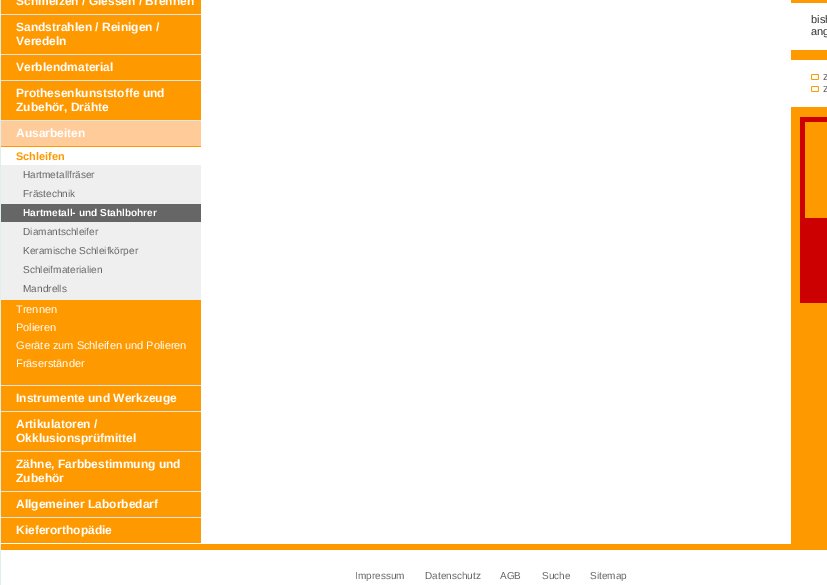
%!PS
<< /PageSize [827 585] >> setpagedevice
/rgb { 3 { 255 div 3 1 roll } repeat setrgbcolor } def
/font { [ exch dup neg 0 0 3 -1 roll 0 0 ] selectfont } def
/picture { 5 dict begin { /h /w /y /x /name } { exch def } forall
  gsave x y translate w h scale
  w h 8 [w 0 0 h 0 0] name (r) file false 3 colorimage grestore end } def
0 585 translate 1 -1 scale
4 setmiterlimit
255 153 0 rgb
0 0 827 585 rectfill
[
  [0 0 1 585 226 238 236]
  [201 0 590 544 255 255 255]
  [1 543 200 1 255 255 255]
  [1 14 200 1 229 229 229]
  [1 54 200 1 229 229 229]
  [1 80 200 1 229 229 229]
  [1 121 200 25 255 204 153]
  [1 120 200 1 229 229 229]
  [1 147 200 18 255 255 255]
  [1 165 200 135 239 239 239]
  [1 204 200 18 102 102 102]
  [1 385 200 1 229 229 229]
  [1 411 200 1 229 229 229]
  [1 451 200 1 229 229 229]
  [1 491 200 1 229 229 229]
  [1 517 200 1 229 229 229]
  [791 3 36 47 255 255 255]
  [791 60 36 47 255 255 255]
] { aload pop rgb rectfill } forall
(img/1.rgb) 811 74 8 6 picture
(img/1.rgb) 811 86 8 6 picture
[
  [800 117 27 5 204 0 0]
  [800 298 27 5 204 0 0]
  [800 117 5 186 204 0 0]
  [805 218 22 80 204 0 0]
  [1 550 826 35 255 255 255]
] { aload pop rgb rectfill } forall
/LiberationSans-Bold 12 font
[
  [(Schmelzen / Giessen / Brennen) 16 5]
  [(Sandstrahlen / Reinigen /) 16 31]
  [(Veredeln) 16 45]
  [(Verblendmaterial) 16 71]
  [(Prothesenkunststoffe und) 16 97]
  [(Zubehör, Drähte) 16 111]
  [(Ausarbeiten) 16 137]
] { aload pop moveto show } forall
/LiberationSans-Bold 11 font
255 153 0 rgb
16 160 moveto (Schleifen) show
/LiberationSans-Regular 10.1 font
102 102 102 rgb
23 178 moveto (Hartmetallfräser) show
23 197 moveto (Frästechnik) show
/LiberationSans-Bold 10.1 font
255 255 255 rgb
23 216 moveto (Hartmetall- und Stahlbohrer) show
/LiberationSans-Regular 10.1 font
102 102 102 rgb
[
  [(Diamantschleifer) 23 235]
  [(Keramische Schleifkörper) 23 254]
  [(Schleifmaterialien) 23 273]
  [(Mandrells) 23 292]
] { aload pop moveto show } forall
/LiberationSans-Regular 11 font
255 255 255 rgb
[
  [(Trennen) 16 313]
  [(Polieren) 16 331]
  [(Geräte zum Schleifen und Polieren) 16 349]
  [(Fräserständer) 16 367]
] { aload pop moveto show } forall
/LiberationSans-Bold 12 font
[
  [(Instrumente und Werkzeuge) 16 402]
  [(Artikulatoren /) 16 428]
  [(Okklusionsprüfmittel) 16 442]
  [(Zähne, Farbbestimmung und) 16 468]
  [(Zubehör) 16 482]
  [(Allgemeiner Laborbedarf) 16 508]
  [(Kieferorthopädie) 16 534]
] { aload pop moveto show } forall
/LiberationSans-Regular 11 font
51 51 51 rgb
811 23 moveto (bish) show
811 35 moveto (ang) show
102 102 102 rgb
823 80 moveto (z) show
823 92 moveto (z) show
/LiberationSans-Regular 10 font
[
  [(Impressum) 355 579]
  [(Datenschutz) 425 579]
  [(AGB) 500 579]
  [(Suche) 542 579]
  [(Sitemap) 590 579]
] { aload pop moveto show } forall
showpage
